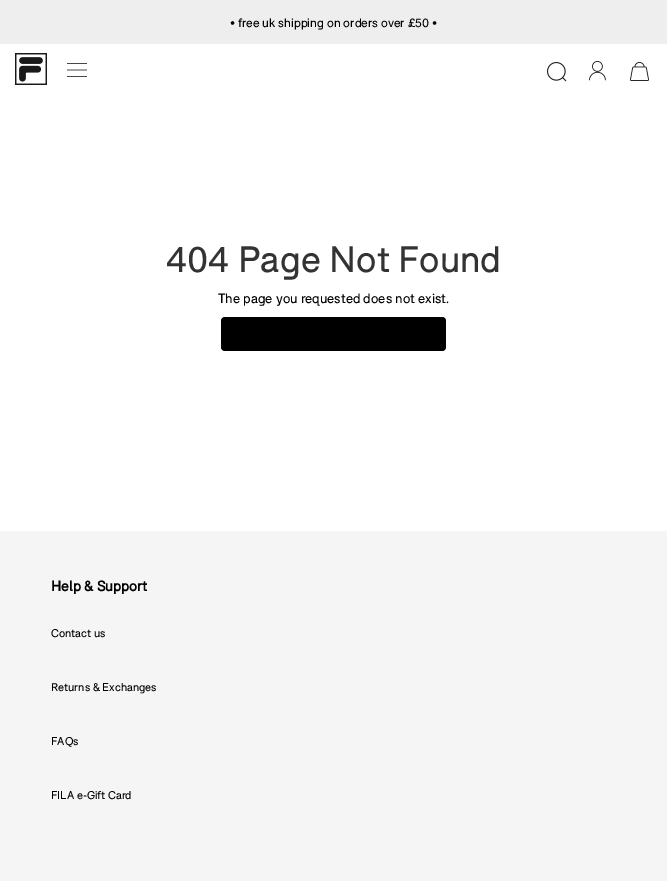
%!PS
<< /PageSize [667 881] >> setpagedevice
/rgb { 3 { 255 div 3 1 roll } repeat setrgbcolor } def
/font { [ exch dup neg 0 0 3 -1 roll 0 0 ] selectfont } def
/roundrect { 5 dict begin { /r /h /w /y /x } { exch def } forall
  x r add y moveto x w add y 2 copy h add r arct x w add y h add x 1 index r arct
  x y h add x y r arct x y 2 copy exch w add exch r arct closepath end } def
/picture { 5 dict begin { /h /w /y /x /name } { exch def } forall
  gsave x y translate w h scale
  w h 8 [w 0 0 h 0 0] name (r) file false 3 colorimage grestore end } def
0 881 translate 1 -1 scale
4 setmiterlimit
255 255 255 rgb
0 0 667 881 rectfill
238 238 238 rgb
0 0 667 44 rectfill
(img/1.rgb) 15 53 32 32 picture
(img/2.rgb) 67 63 20 14 picture
(img/3.rgb) 547 62 20 20 picture
(img/4.rgb) 589 61 17 20 picture
(img/5.rgb) 630 62 19 19 picture
0 0 0 rgb
221 317 225 34 4 roundrect fill
245 245 245 rgb
0 531 667 350 rectfill
/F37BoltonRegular-Regular 12 font
0 0 0 rgb
230 27 moveto (• free uk shipping on orders over £50 •) show
/F37BoltonRegular-Regular 36 font
51 51 51 rgb
166 272 moveto (404 Page Not Found) show
/F37BoltonRegular-Regular 13.1 font
0 0 0 rgb
218 303 moveto (The page you requested does not exist.) show
/F37BoltonRegular-Bold 14 font
51 591 moveto (Help & Support) show
/F37BoltonRegular-Regular 11 font
[
  [(Contact us) 51 637]
  [(Returns & Exchanges) 51 691]
  [(FAQs) 51 745]
  [(FILA e-Gift Card) 51 799]
] { aload pop moveto show } forall
showpage
